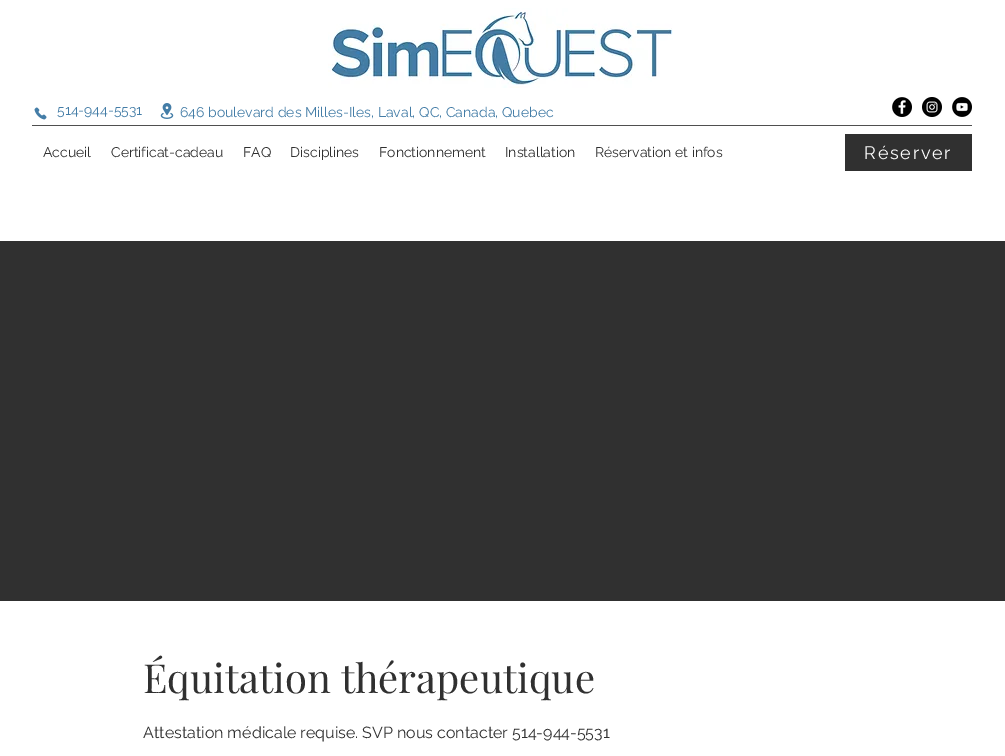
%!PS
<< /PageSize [1005 756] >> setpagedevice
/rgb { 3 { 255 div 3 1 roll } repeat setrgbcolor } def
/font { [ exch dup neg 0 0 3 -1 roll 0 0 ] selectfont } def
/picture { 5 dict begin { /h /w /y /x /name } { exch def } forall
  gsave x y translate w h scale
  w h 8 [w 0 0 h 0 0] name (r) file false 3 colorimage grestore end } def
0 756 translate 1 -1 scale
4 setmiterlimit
255 255 255 rgb
0 0 1005 756 rectfill
(img/1.rgb) 328 8 345 80 picture
(img/2.rgb) 34 107 13 13 picture
(img/3.rgb) 160 103 14 16 picture
(img/4.rgb) 892 97 20 20 picture
(img/5.rgb) 922 97 20 20 picture
(img/6.rgb) 952 97 20 20 picture
[
  [32 125 940 1 79 79 79]
  [845 134 127 37 48 48 48]
  [0 241 1005 360 48 48 48]
] { aload pop rgb rectfill } forall
/Raleway-Regular 14 font
68 125 167 rgb
57 115 moveto (514-944-5531) show
180 117 moveto (646 boulevard des Milles-Iles, Laval, QC, Canada, Quebec) show
48 48 48 rgb
[
  [(Accueil) 43 157]
  [(Certificat-cadeau) 111 157]
  [(FAQ) 243 157]
  [(Disciplines) 290 157]
  [(Fonctionnement) 379 157]
  [(Installation) 505 157]
  [(Réservation et infos) 595 157]
] { aload pop moveto show } forall
/Raleway-Regular 18 font
255 255 255 rgb
864 159 moveto 1.75 0 (Réserver) ashow
/PlayfairDisplay-Regular 40 font
48 48 48 rgb
143 693 moveto (Équitation thérapeutique) show
/Raleway-Regular 16 font
143 738 moveto (Attestation médicale requise. SVP nous contacter 514-944-5531) show
showpage
